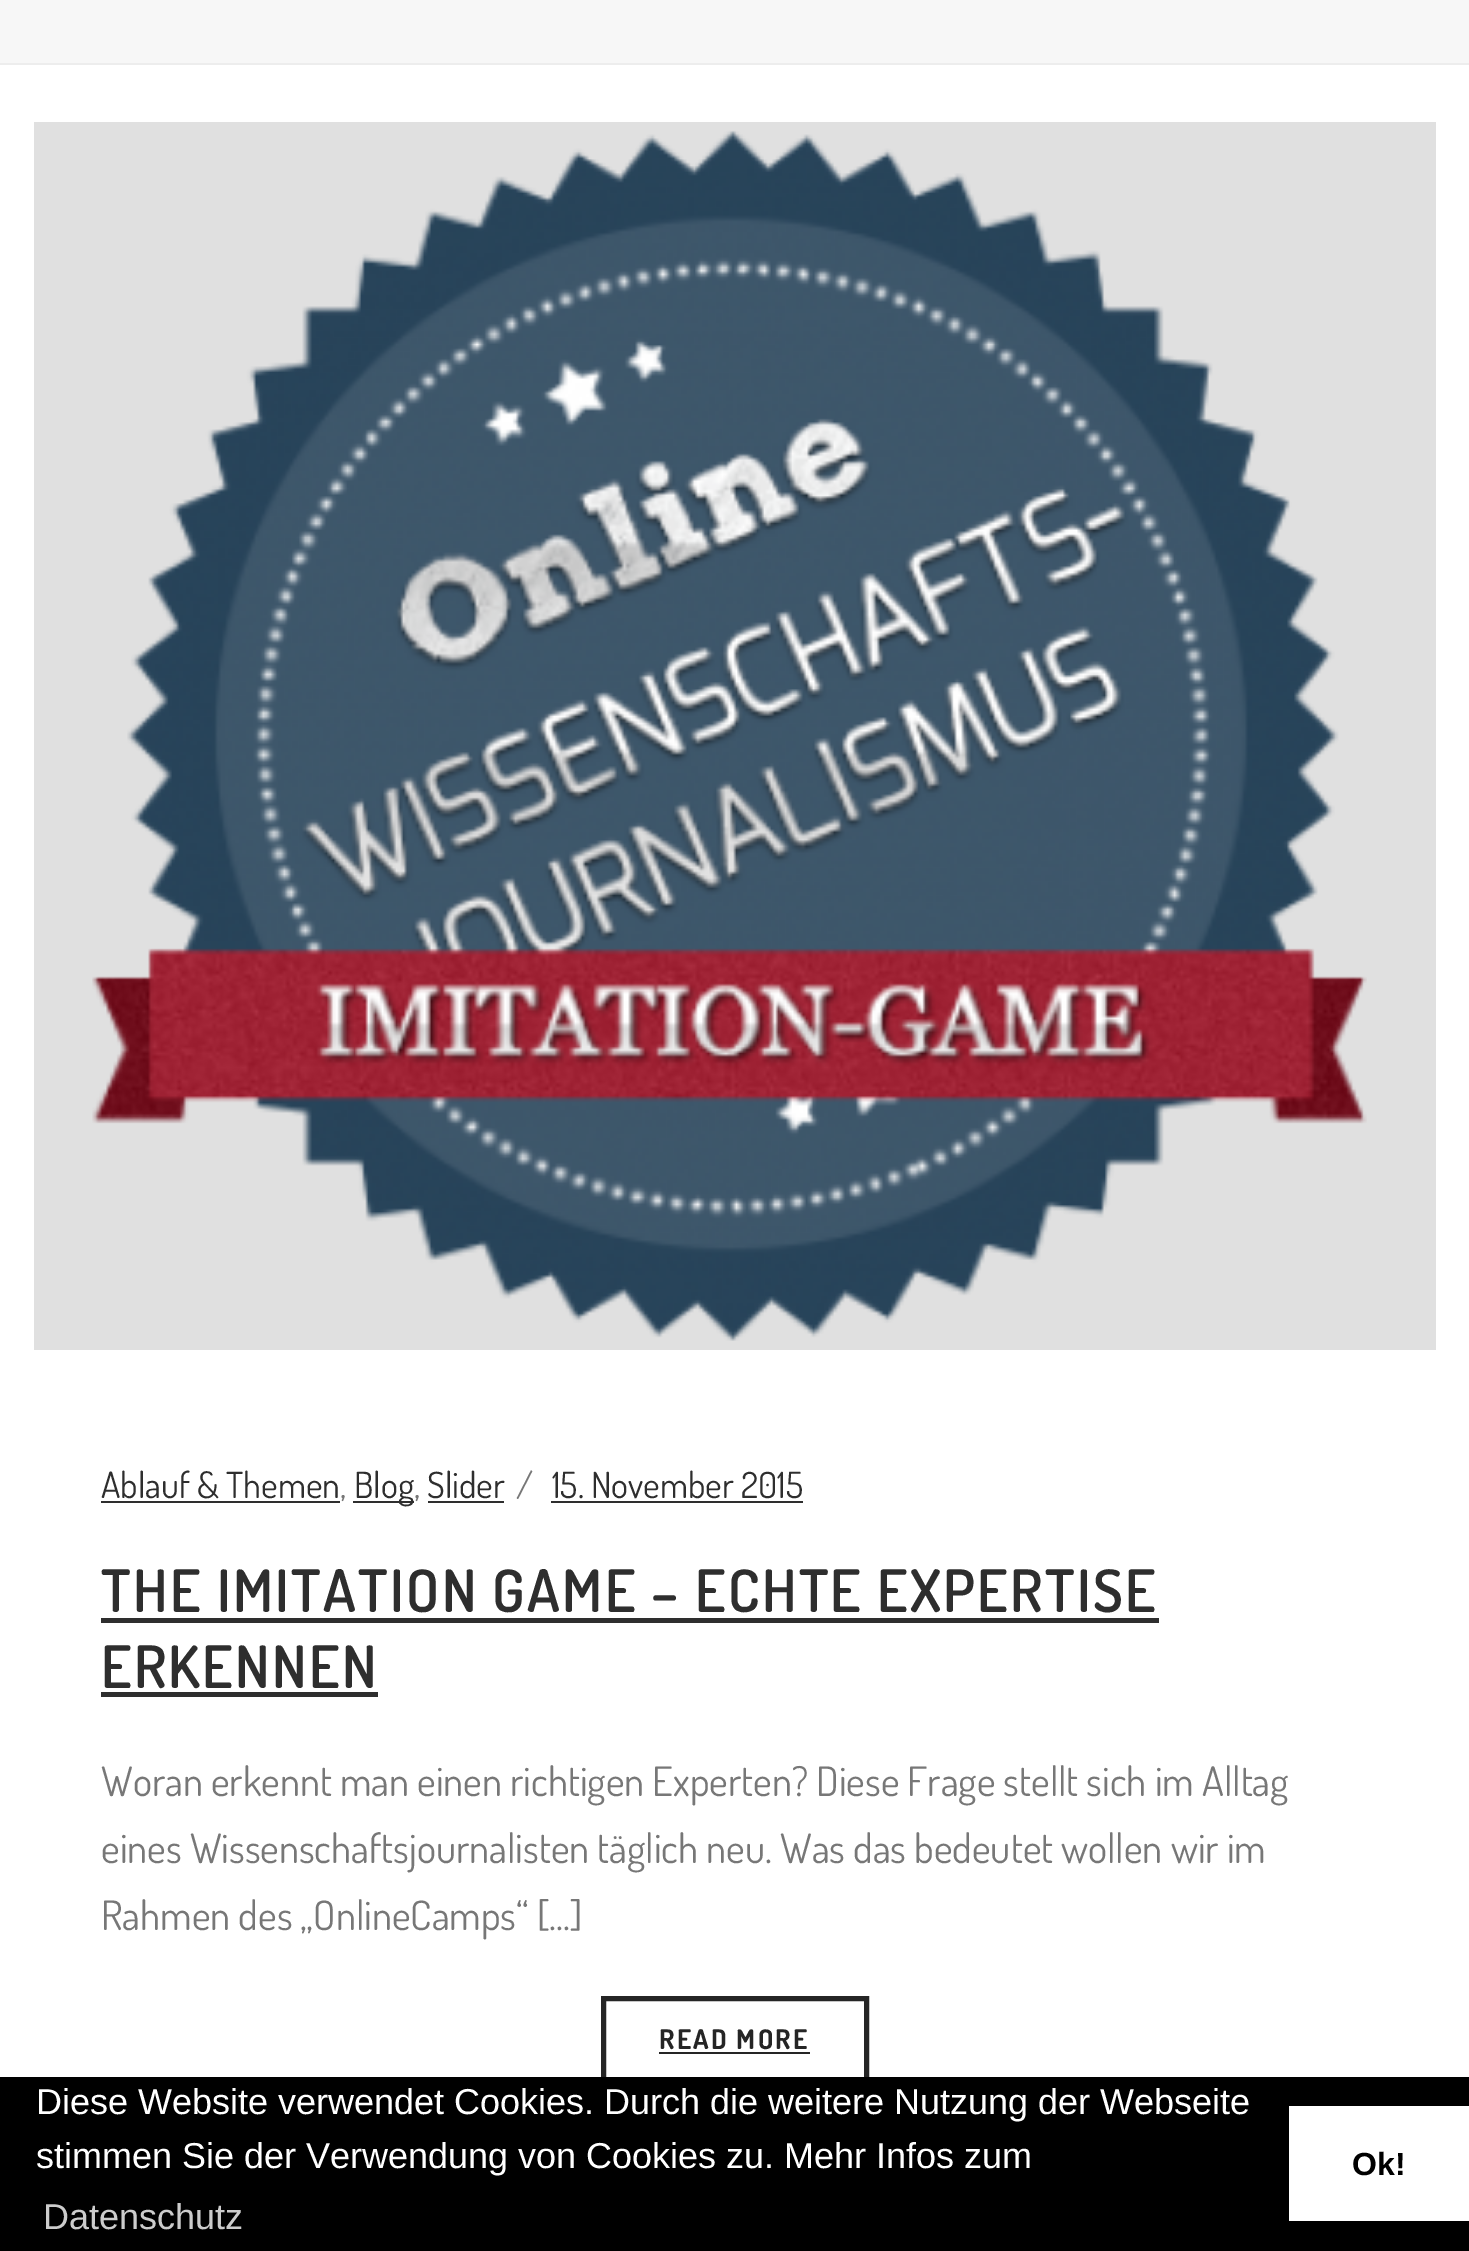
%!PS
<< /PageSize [1469 2251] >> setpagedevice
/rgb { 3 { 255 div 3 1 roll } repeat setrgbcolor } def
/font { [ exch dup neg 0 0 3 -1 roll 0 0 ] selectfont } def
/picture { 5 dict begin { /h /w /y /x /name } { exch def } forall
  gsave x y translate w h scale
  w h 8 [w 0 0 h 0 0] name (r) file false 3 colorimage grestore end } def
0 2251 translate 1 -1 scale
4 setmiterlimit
255 255 255 rgb
0 0 1469 2251 rectfill
[
  [0 0 1469 63 247 247 247]
  [0 63 1469 2 237 237 237]
  [34 122 1402 1228 224 224 224]
] { aload pop rgb rectfill } forall
(img/1.rgb) 92 130 1275 1211 picture
[
  [101 1501 239 2 46 46 46]
  [353 1501 61 2 46 46 46]
  [428 1501 76 2 46 46 46]
  [551 1501 252 2 46 46 46]
  [101 1618 1058 5 46 46 46]
  [101 1692 277 5 46 46 46]
] { aload pop rgb rectfill } forall
37 37 37 rgb
5 setlinewidth
603.5 1998.5 263 85 rectstroke
[
  [659 2052 151 2 37 37 37]
  [0 2077 1469 174 0 0 0]
  [1289 2106 180 115 255 255 255]
] { aload pop rgb rectfill } forall
/Dosis-Regular 36 font
46 46 46 rgb
101 1498 moveto (Ablauf & Themen) show
119 119 119 rgb
340 1498 moveto (,) show
46 46 46 rgb
354 1498 moveto (Blog) show
119 119 119 rgb
414 1498 moveto (,) show
46 46 46 rgb
427 1498 moveto (Slider) show
119 119 119 rgb
516 1498 moveto (/) show
46 46 46 rgb
552 1498 moveto (15. November 2015) show
/Dosis-SemiBold 58.5 font
101 1612 moveto 2.25 0 (THE IMITATION GAME – ECHTE EXPERTISE) ashow
101 1688 moveto 2.25 0 (ERKENNEN) ashow
/Dosis-Regular 40.5 font
119 119 119 rgb
[
  [(Woran erkennt man einen richtigen Experten? Diese Frage stellt sich im Alltag) 101 1796]
  [(eines Wissenschaftsjournalisten täglich neu. Was das bedeutet wollen wir im) 101 1863]
  [(Rahmen des „OnlineCamps“ [...]) 101 1930]
] { aload pop moveto show } forall
/Dosis-Bold 27 font
37 37 37 rgb
659 2049 moveto 2.25 0 (READ MORE) ashow
/LiberationSans-Regular 36 font
255 255 255 rgb
36 2114 moveto (Diese Website verwendet Cookies. Durch die weitere Nutzung der Webseite) show
36 2168 moveto (stimmen Sie der Verwendung von Cookies zu. Mehr Infos zum) show
204 204 204 rgb
43 2229 moveto (Datenschutz) show
/LiberationSans-Bold 32 font
0 0 0 rgb
1352 2175 moveto (Ok!) show
showpage
